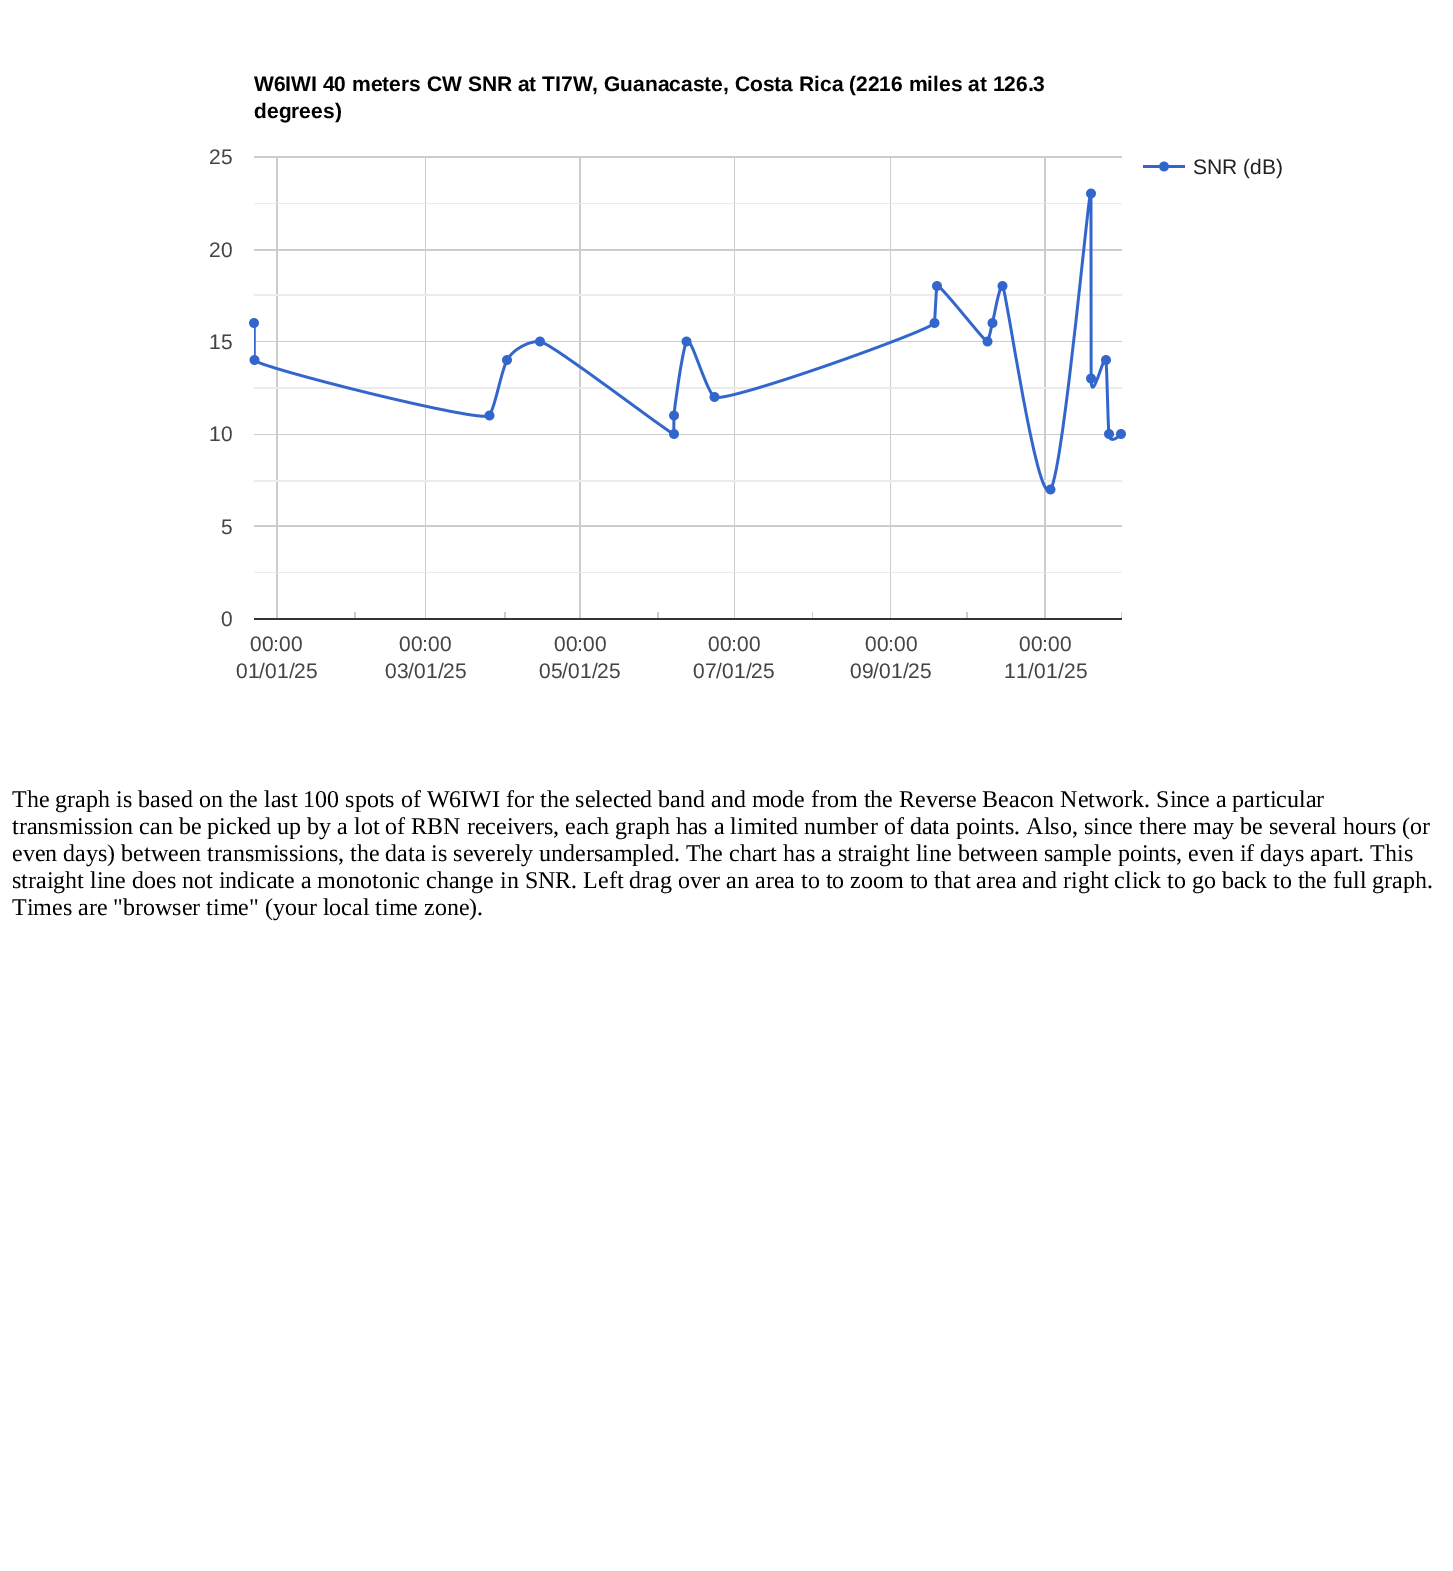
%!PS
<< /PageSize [1453 1571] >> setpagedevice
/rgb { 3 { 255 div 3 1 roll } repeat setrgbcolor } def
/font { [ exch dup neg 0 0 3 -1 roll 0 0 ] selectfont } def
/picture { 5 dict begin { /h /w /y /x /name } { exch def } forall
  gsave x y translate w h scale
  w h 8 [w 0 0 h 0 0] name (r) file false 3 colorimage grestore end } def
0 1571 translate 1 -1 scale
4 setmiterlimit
255 255 255 rgb
0 0 1453 1571 rectfill
(img/1.rgb) 249 156 936 464 picture
/LiberationSans-Bold 21 font
0 0 0 rgb
254 91 moveto (W6IWI 40 meters CW SNR at TI7W, Guanacaste, Costa Rica \(2216 miles at 126.3) show
254 118 moveto (degrees\)) show
/LiberationSans-Regular 21 font
68 68 68 rgb
209 164 moveto (25) show
34 34 34 rgb
1193 174 moveto (SNR \(dB\)) show
68 68 68 rgb
[
  [(20) 209 257]
  [(15) 209 349]
  [(10) 209 441]
  [(5) 221 534]
  [(0) 221 626]
  [(00:00) 250 651]
  [(00:00) 399 651]
  [(00:00) 554 651]
  [(00:00) 708 651]
  [(00:00) 865 651]
  [(00:00) 1019 651]
  [(01/01/25) 236 678]
  [(03/01/25) 385 678]
  [(05/01/25) 539 678]
  [(07/01/25) 693 678]
  [(09/01/25) 850 678]
] { aload pop moveto show } forall
1004 678 moveto 0.25 0 (11/01/25) ashow
/LiberationSerif-Regular 24 font
0 0 0 rgb
[
  [(The graph is based on the last 100 spots of W6IWI for the selected band and mode from the Reverse Beacon Network. Since a particular) 12 807]
  [(transmission can be picked up by a lot of RBN receivers, each graph has a limited number of data points. Also, since there may be several hours \(or) 12 834]
  [(even days\) between transmissions, the data is severely undersampled. The chart has a straight line between sample points, even if days apart. This) 12 861]
  [(straight line does not indicate a monotonic change in SNR. Left drag over an area to to zoom to that area and right click to go back to the full graph.) 12 888]
  [(Times are "browser time" \(your local time zone\).) 12 915]
] { aload pop moveto show } forall
showpage
